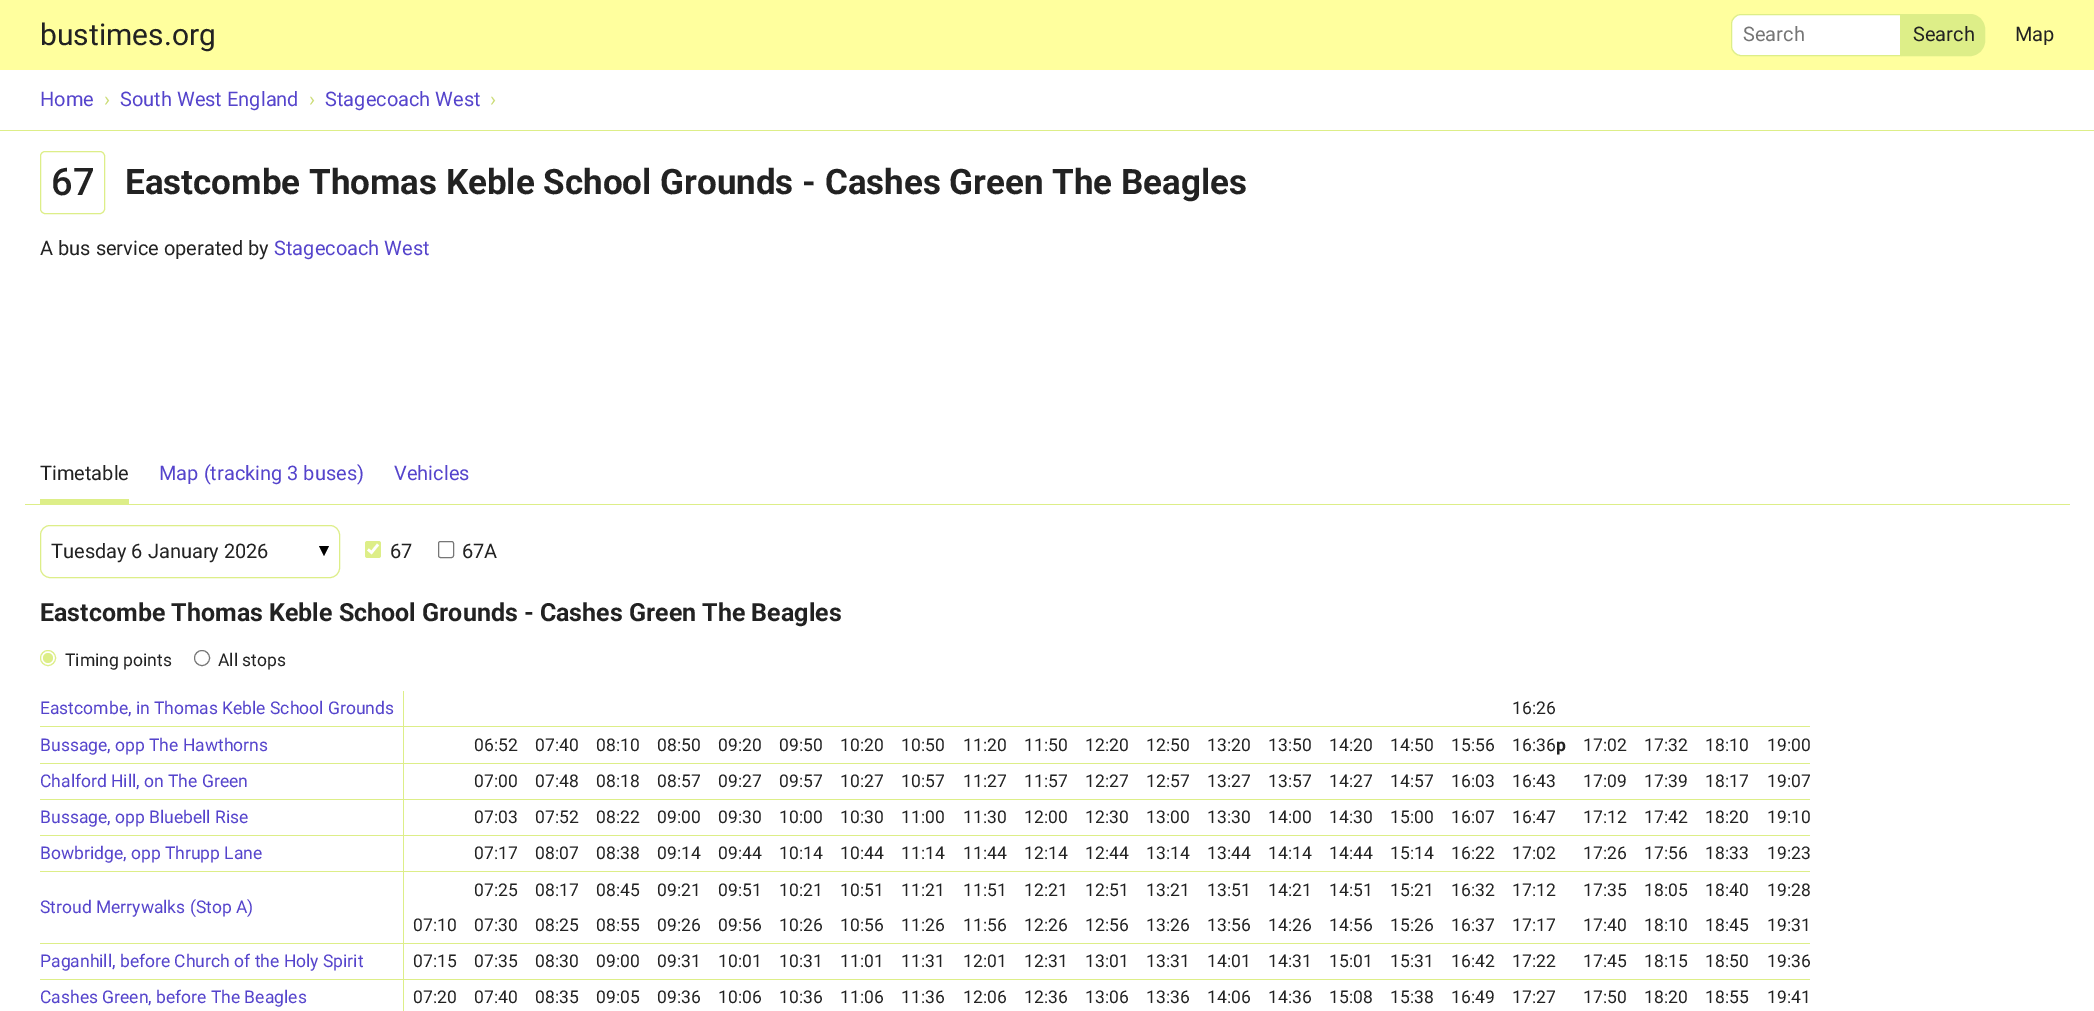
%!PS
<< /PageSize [2094 1011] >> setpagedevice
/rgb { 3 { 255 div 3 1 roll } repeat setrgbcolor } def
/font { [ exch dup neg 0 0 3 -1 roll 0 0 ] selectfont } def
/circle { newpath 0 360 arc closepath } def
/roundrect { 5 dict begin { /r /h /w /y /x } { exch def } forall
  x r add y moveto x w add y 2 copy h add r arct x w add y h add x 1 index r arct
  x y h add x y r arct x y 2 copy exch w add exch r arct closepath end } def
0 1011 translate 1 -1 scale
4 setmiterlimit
255 255 255 rgb
0 0 2094 1011 rectfill
255 255 158 rgb
0 0 2094 70 rectfill
255 255 255 rgb
1741 14.5 moveto 1900.5 14.5 lineto 1900.5 55.5 lineto 1741 55.5 lineto 1736 55.5 1731.5 51 1731.5 46 curveto 1731.5 24 lineto 1731.5 19 1736 14.5 1741 14.5 curveto closepath gsave fill grestore
221 238 136 rgb
stroke
1901.5 14.5 moveto 1970 14.5 lineto 1978 14.5 1984.5 21 1984.5 29 curveto 1984.5 41 lineto 1984.5 49 1978 55.5 1970 55.5 curveto 1901.5 55.5 lineto closepath gsave fill grestore
stroke
0 130 2094 1 rectfill
40.5 151.5 64 62 4.5 roundrect stroke
25 504 2045 1 rectfill
40 499 89 5 rectfill
0 0 0 rgb
319 546 moveto 324 556 lineto 329 546 lineto closepath fill
221 238 136 rgb
40.5 525.5 299 52 9.5 roundrect stroke
365 541 16 17 2.5 roundrect fill
255 255 255 rgb
2.6 setlinewidth
368 549.5 moveto 371.5 552.5 lineto 378 544.5 lineto stroke
118 118 118 rgb
1 setlinewidth
438.5 541.5 15 16 2 roundrect stroke
221 238 136 rgb
48 658 7.5 circle stroke
48 658 5 circle fill
118 118 118 rgb
202 658 7.5 circle stroke
[
  [40 726 1770 1 221 238 136]
  [40 763 1770 1 221 238 136]
  [40 799 1770 1 221 238 136]
  [40 835 1770 1 221 238 136]
  [40 871 1770 1 221 238 136]
  [40 943 1770 1 221 238 136]
  [40 979 1770 1 221 238 136]
  [403 691 1 320 221 238 136]
] { aload pop rgb rectfill } forall
/Roboto-Regular 30 font
34 34 34 rgb
40 45 moveto (bustimes.org) show
/Roboto-Regular 20 font
117 117 117 rgb
1743 41 moveto (Search) show
34 34 34 rgb
1913 41 moveto (Search) show
2015 41 moveto (Map) show
85 68 204 rgb
40 106 moveto (Home) show
204 221 119 rgb
104 106 moveto (›) show
85 68 204 rgb
120 106 moveto (South West England) show
204 221 119 rgb
309 106 moveto (›) show
85 68 204 rgb
325 106 moveto (Stagecoach West) show
204 221 119 rgb
490 106 moveto (›) show
/Roboto-Medium 38 font
34 34 34 rgb
51 195 moveto (67) show
/Roboto-Bold 35 font
125 194 moveto (Eastcombe Thomas Keble School Grounds - Cashes Green The Beagles) show
/Roboto-Regular 20 font
40 255 moveto (A bus service operated by) show
85 68 204 rgb
274 255 moveto (Stagecoach West) show
34 34 34 rgb
40 480 moveto (Timetable) show
85 68 204 rgb
159 480 moveto (Map \(tracking 3 buses\)) show
394 480 moveto (Vehicles) show
34 34 34 rgb
[
  [(Tuesday 6 January 2026) 51 558]
  [(67) 390 558]
  [(67A) 462 558]
] { aload pop moveto show } forall
/Roboto-Bold 25 font
40 621 moveto (Eastcombe Thomas Keble School Grounds - Cashes Green The Beagles) show
/Roboto-Regular 17.5 font
65 666 moveto (Timing points) show
218 666 moveto (All stops) show
85 68 204 rgb
40 714 moveto (Eastcombe, in Thomas Keble School Grounds) show
34 34 34 rgb
1512 714 moveto (16:26) show
85 68 204 rgb
40 751 moveto (Bussage, opp The Hawthorns) show
34 34 34 rgb
[
  [(06:52) 474 751]
  [(07:40) 535 751]
  [(08:10) 596 751]
  [(08:50) 657 751]
  [(09:20) 718 751]
  [(09:50) 779 751]
  [(10:20) 840 751]
  [(10:50) 901 751]
  [(11:20) 963 751]
  [(11:50) 1024 751]
  [(12:20) 1085 751]
  [(12:50) 1146 751]
  [(13:20) 1207 751]
  [(13:50) 1268 751]
  [(14:20) 1329 751]
  [(14:50) 1390 751]
  [(15:56) 1451 751]
  [(16:36) 1512 751]
] { aload pop moveto show } forall
/Roboto-Bold 17.5 font
1556 751 moveto (p) show
/Roboto-Regular 17.5 font
[
  [(17:02) 1583 751]
  [(17:32) 1644 751]
  [(18:10) 1705 751]
  [(19:00) 1767 751]
] { aload pop moveto show } forall
85 68 204 rgb
40 787 moveto (Chalford Hill, on The Green) show
34 34 34 rgb
[
  [(07:00) 474 787]
  [(07:48) 535 787]
  [(08:18) 596 787]
  [(08:57) 657 787]
  [(09:27) 718 787]
  [(09:57) 779 787]
  [(10:27) 840 787]
  [(10:57) 901 787]
  [(11:27) 963 787]
  [(11:57) 1024 787]
  [(12:27) 1085 787]
  [(12:57) 1146 787]
  [(13:27) 1207 787]
  [(13:57) 1268 787]
  [(14:27) 1329 787]
  [(14:57) 1390 787]
  [(16:03) 1451 787]
  [(16:43) 1512 787]
  [(17:09) 1583 787]
  [(17:39) 1644 787]
  [(18:17) 1705 787]
  [(19:07) 1767 787]
] { aload pop moveto show } forall
85 68 204 rgb
40 823 moveto (Bussage, opp Bluebell Rise) show
34 34 34 rgb
[
  [(07:03) 474 823]
  [(07:52) 535 823]
  [(08:22) 596 823]
  [(09:00) 657 823]
  [(09:30) 718 823]
  [(10:00) 779 823]
  [(10:30) 840 823]
  [(11:00) 901 823]
  [(11:30) 963 823]
  [(12:00) 1024 823]
  [(12:30) 1085 823]
  [(13:00) 1146 823]
  [(13:30) 1207 823]
  [(14:00) 1268 823]
  [(14:30) 1329 823]
  [(15:00) 1390 823]
  [(16:07) 1451 823]
  [(16:47) 1512 823]
  [(17:12) 1583 823]
  [(17:42) 1644 823]
  [(18:20) 1705 823]
  [(19:10) 1767 823]
] { aload pop moveto show } forall
85 68 204 rgb
40 859 moveto (Bowbridge, opp Thrupp Lane) show
34 34 34 rgb
[
  [(07:17) 474 859]
  [(08:07) 535 859]
  [(08:38) 596 859]
  [(09:14) 657 859]
  [(09:44) 718 859]
  [(10:14) 779 859]
  [(10:44) 840 859]
  [(11:14) 901 859]
  [(11:44) 963 859]
  [(12:14) 1024 859]
  [(12:44) 1085 859]
  [(13:14) 1146 859]
  [(13:44) 1207 859]
  [(14:14) 1268 859]
  [(14:44) 1329 859]
  [(15:14) 1390 859]
  [(16:22) 1451 859]
  [(17:02) 1512 859]
  [(17:26) 1583 859]
  [(17:56) 1644 859]
  [(18:33) 1705 859]
  [(19:23) 1767 859]
  [(07:25) 474 896]
  [(08:17) 535 896]
  [(08:45) 596 896]
  [(09:21) 657 896]
  [(09:51) 718 896]
  [(10:21) 779 896]
  [(10:51) 840 896]
  [(11:21) 901 896]
  [(11:51) 963 896]
  [(12:21) 1024 896]
  [(12:51) 1085 896]
  [(13:21) 1146 896]
  [(13:51) 1207 896]
  [(14:21) 1268 896]
  [(14:51) 1329 896]
  [(15:21) 1390 896]
  [(16:32) 1451 896]
  [(17:12) 1512 896]
  [(17:35) 1583 896]
  [(18:05) 1644 896]
  [(18:40) 1705 896]
  [(19:28) 1767 896]
] { aload pop moveto show } forall
85 68 204 rgb
40 913 moveto (Stroud Merrywalks \(Stop A\)) show
34 34 34 rgb
[
  [(07:10) 413 931]
  [(07:30) 474 931]
  [(08:25) 535 931]
  [(08:55) 596 931]
  [(09:26) 657 931]
  [(09:56) 718 931]
  [(10:26) 779 931]
  [(10:56) 840 931]
  [(11:26) 901 931]
  [(11:56) 963 931]
  [(12:26) 1024 931]
  [(12:56) 1085 931]
  [(13:26) 1146 931]
  [(13:56) 1207 931]
  [(14:26) 1268 931]
  [(14:56) 1329 931]
  [(15:26) 1390 931]
  [(16:37) 1451 931]
  [(17:17) 1512 931]
  [(17:40) 1583 931]
  [(18:10) 1644 931]
  [(18:45) 1705 931]
  [(19:31) 1767 931]
] { aload pop moveto show } forall
85 68 204 rgb
40 967 moveto (Paganhill, before Church of the Holy Spirit) show
34 34 34 rgb
[
  [(07:15) 413 967]
  [(07:35) 474 967]
  [(08:30) 535 967]
  [(09:00) 596 967]
  [(09:31) 657 967]
  [(10:01) 718 967]
  [(10:31) 779 967]
  [(11:01) 840 967]
  [(11:31) 901 967]
  [(12:01) 963 967]
  [(12:31) 1024 967]
  [(13:01) 1085 967]
  [(13:31) 1146 967]
  [(14:01) 1207 967]
  [(14:31) 1268 967]
  [(15:01) 1329 967]
  [(15:31) 1390 967]
  [(16:42) 1451 967]
  [(17:22) 1512 967]
  [(17:45) 1583 967]
  [(18:15) 1644 967]
  [(18:50) 1705 967]
  [(19:36) 1767 967]
] { aload pop moveto show } forall
85 68 204 rgb
40 1003 moveto (Cashes Green, before The Beagles) show
34 34 34 rgb
[
  [(07:20) 413 1003]
  [(07:40) 474 1003]
  [(08:35) 535 1003]
  [(09:05) 596 1003]
  [(09:36) 657 1003]
  [(10:06) 718 1003]
  [(10:36) 779 1003]
  [(11:06) 840 1003]
  [(11:36) 901 1003]
  [(12:06) 963 1003]
  [(12:36) 1024 1003]
  [(13:06) 1085 1003]
  [(13:36) 1146 1003]
  [(14:06) 1207 1003]
  [(14:36) 1268 1003]
  [(15:08) 1329 1003]
  [(15:38) 1390 1003]
  [(16:49) 1451 1003]
  [(17:27) 1512 1003]
  [(17:50) 1583 1003]
  [(18:20) 1644 1003]
  [(18:55) 1705 1003]
  [(19:41) 1767 1003]
] { aload pop moveto show } forall
showpage
